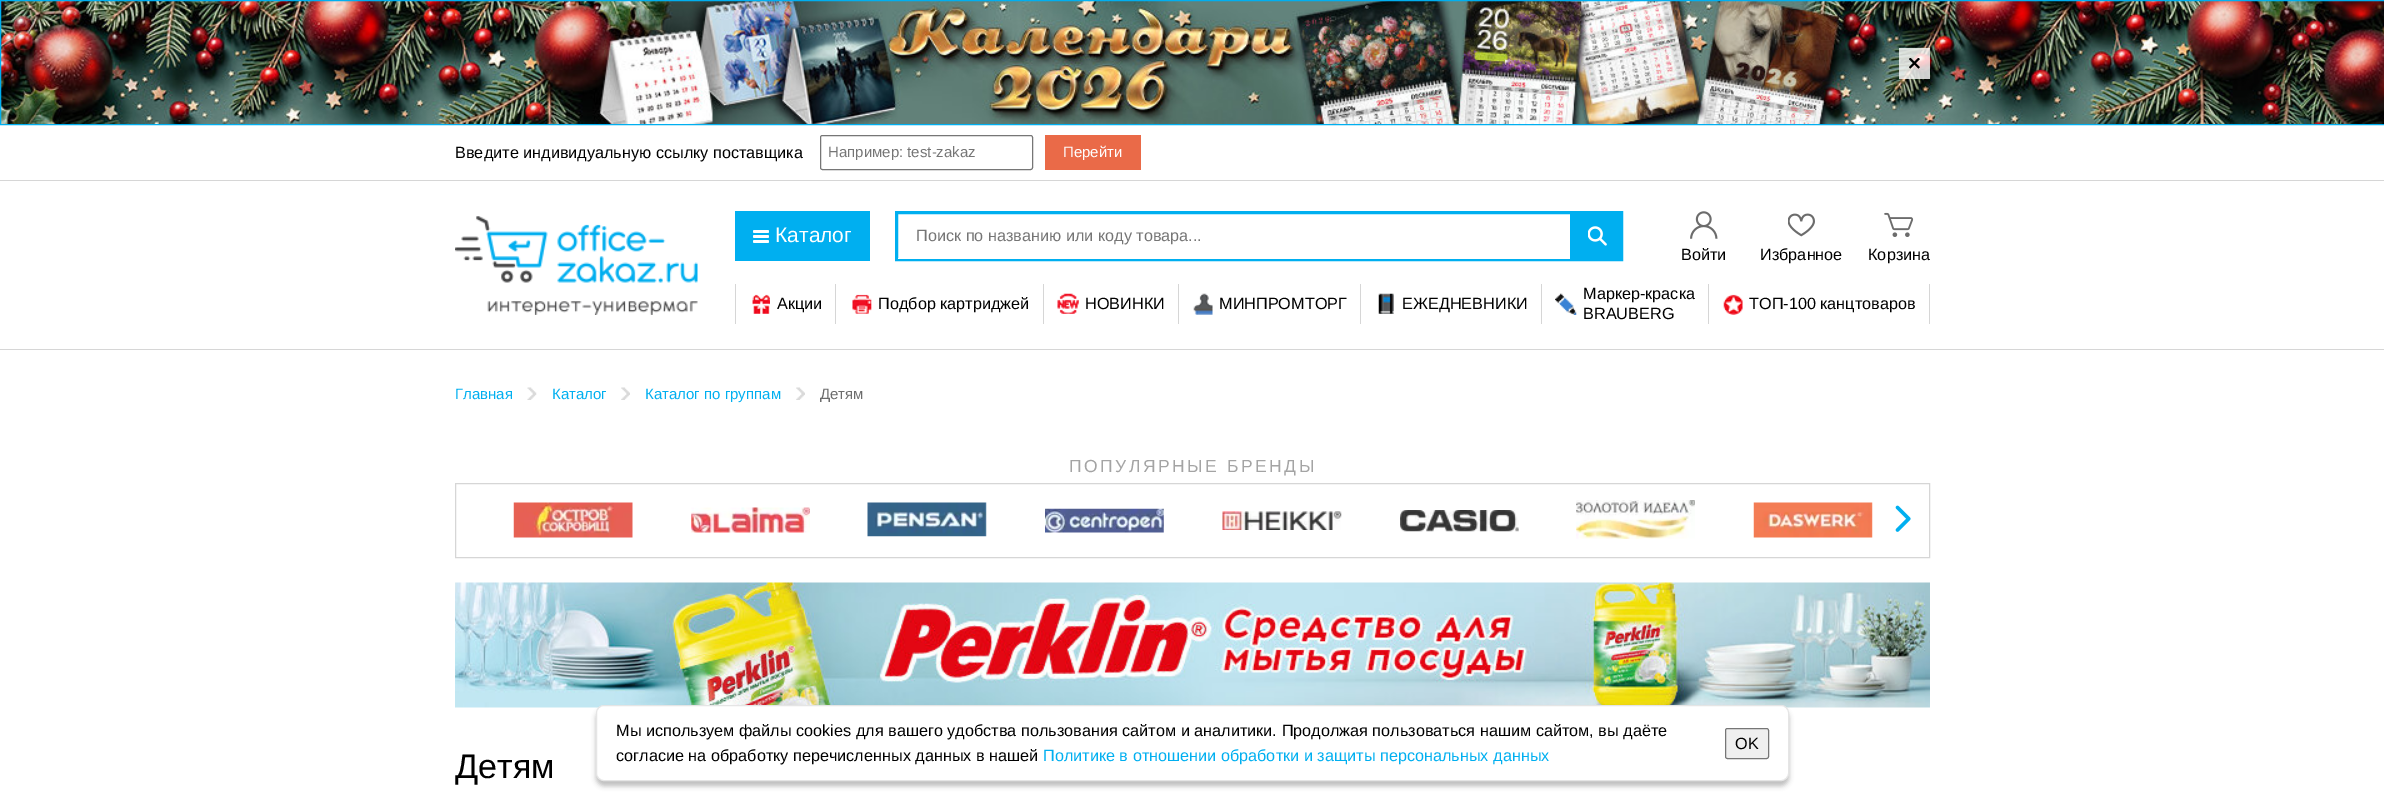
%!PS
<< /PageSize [2384 793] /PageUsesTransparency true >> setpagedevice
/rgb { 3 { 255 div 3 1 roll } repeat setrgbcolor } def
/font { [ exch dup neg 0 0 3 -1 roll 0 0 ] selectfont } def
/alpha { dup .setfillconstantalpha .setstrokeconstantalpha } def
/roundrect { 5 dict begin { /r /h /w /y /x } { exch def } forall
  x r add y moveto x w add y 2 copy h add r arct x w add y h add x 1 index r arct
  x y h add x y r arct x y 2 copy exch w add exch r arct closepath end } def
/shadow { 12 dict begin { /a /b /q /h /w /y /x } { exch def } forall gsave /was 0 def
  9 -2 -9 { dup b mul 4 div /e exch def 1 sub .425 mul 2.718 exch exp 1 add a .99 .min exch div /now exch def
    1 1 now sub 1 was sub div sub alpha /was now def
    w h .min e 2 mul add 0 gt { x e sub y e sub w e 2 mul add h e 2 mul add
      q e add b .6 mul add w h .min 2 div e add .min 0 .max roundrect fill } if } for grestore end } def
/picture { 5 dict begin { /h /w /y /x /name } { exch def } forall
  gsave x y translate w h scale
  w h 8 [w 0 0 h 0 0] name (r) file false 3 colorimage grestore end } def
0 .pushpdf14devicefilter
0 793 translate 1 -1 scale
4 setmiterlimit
255 255 255 rgb
0 0 2384 793 rectfill
(img/1.rgb) 1 1 2383 123 picture
0 175 240 rgb
0.5 0.5 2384 124 rectstroke
0.8 alpha
255 255 255 rgb
1899 48 31 31 rectfill
1 alpha
(img/2.rgb) 1909 58 11 11 picture
214 214 214 rgb
0 180 2384 1 rectfill
118 118 118 rgb
820.5 135.5 212 34 2 roundrect stroke
234 106 72 rgb
1045 135 96 35 rectfill
214 214 214 rgb
0 349 2384 1 rectfill
(img/3.rgb) 455 216 243 99 picture
0 175 240 rgb
735 211 135 50 rectfill
255 255 255 rgb
753 235 16 3 1.5 roundrect fill
753 230 16 3 1.5 roundrect fill
753 240 16 3 1.5 roundrect fill
0 175 240 rgb
3 setlinewidth
896.5 212.5 725 47 rectstroke
255 255 255 rgb
898 258 672 1 rectfill
0 175 240 rgb
1570 214 50 44 rectfill
(img/4.rgb) 1588 226 19 20 picture
(img/5.rgb) 1690 211 28 28 picture
(img/6.rgb) 1788 213 27 24 picture
(img/7.rgb) 1884 212 30 25 picture
214 214 214 rgb
835 284 1 40 rectfill
735 284 1 40 rectfill
(img/8.rgb) 752 294 18 20 picture
1043 284 1 40 rectfill
(img/9.rgb) 852 294 20 20 picture
1178 284 1 40 rectfill
(img/10.rgb) 1057 293 22 21 picture
1360 284 1 40 rectfill
(img/11.rgb) 1193 293 20 22 picture
1541 284 1 40 rectfill
(img/12.rgb) 1378 293 16 21 picture
1708 284 1 40 rectfill
(img/13.rgb) 1555 293 22 22 picture
1929 284 1 40 rectfill
(img/14.rgb) 1723 294 20 21 picture
(img/15.rgb) 527 387 10 13 picture
(img/16.rgb) 621 387 9 13 picture
(img/16.rgb) 796 387 9 13 picture
1 setlinewidth
455.5 483.5 1474 74 rectstroke
(img/17.rgb) 513 502 120 36 picture
(img/18.rgb) 691 507 119 26 picture
(img/19.rgb) 867 502 120 35 picture
(img/20.rgb) 1045 508 119 25 picture
(img/21.rgb) 1222 511 120 19 picture
(img/22.rgb) 1400 510 119 22 picture
(img/23.rgb) 1576 500 119 39 picture
(img/24.rgb) 1753 502 120 36 picture
(img/25.rgb) 1895 505 16 27 picture
(img/26.rgb) 455 582 1475 126 picture
0 0 0 rgb
596 710 1193 76 8 2.5 0.25 shadow
255 255 255 rgb
596.5 705.5 1192 75 7.5 roundrect gsave fill grestore
229 229 229 rgb
stroke
239 239 239 rgb
1725.5 728.5 43 30 2 roundrect gsave fill grestore
118 118 118 rgb
stroke
/LiberationSans-Regular 16.25 font
0 0 0 rgb
455 158 moveto (Введите индивидуальную ссылку поставщика) show
/LiberationSans-Regular 15 font
117 117 117 rgb
828 157 moveto (Например: test-zakaz) show
255 255 255 rgb
1063 157 moveto (Перейти) show
/LiberationSans-Regular 21 font
775 242 moveto (Каталог) show
/LiberationSans-Regular 16.25 font
117 117 117 rgb
916 241 moveto (Поиск по названию или коду товара...) show
0 0 0 rgb
[
  [(Войти) 1681 260]
  [(Избранное) 1760 260]
  [(Корзина) 1868 260]
  [(Акции) 777 309]
  [(Подбор картриджей) 878 309]
  [(НОВИНКИ) 1085 309]
  [(МИНПРОМТОРГ) 1219 309]
  [(ЕЖЕДНЕВНИКИ) 1402 309]
  [(Маркер-краска) 1583 299]
  [(BRAUBERG) 1583 319]
  [(ТОП-100 канцтоваров) 1749 309]
] { aload pop moveto show } forall
/LiberationSans-Regular 15 font
0 175 240 rgb
[
  [(Главная) 455 399]
  [(Каталог) 552 399]
  [(Каталог по группам) 645 399]
] { aload pop moveto show } forall
108 108 108 rgb
820 399 moveto (Детям) show
/LiberationSans-Regular 17.5 font
164 164 164 rgb
1069 472 moveto 2.5 0 (ПОПУЛЯРНЫЕ БРЕНДЫ) ashow
/LiberationSans-Regular 34 font
0 0 0 rgb
455 778 moveto (Детям) show
/LiberationSans-Regular 16.25 font
616 736 moveto (Мы используем файлы cookies для вашего удобства пользования сайтом и аналитики. Продолжая пользоваться нашим сайтом, вы даёте) show
616 761 moveto (согласие на обработку перечисленных данных в нашей) show
0 175 240 rgb
1043 761 moveto (Политике в отношении обработки и защиты персональных данных) show
0 0 0 rgb
1735 749 moveto (OK) show
.poppdf14devicefilter showpage
